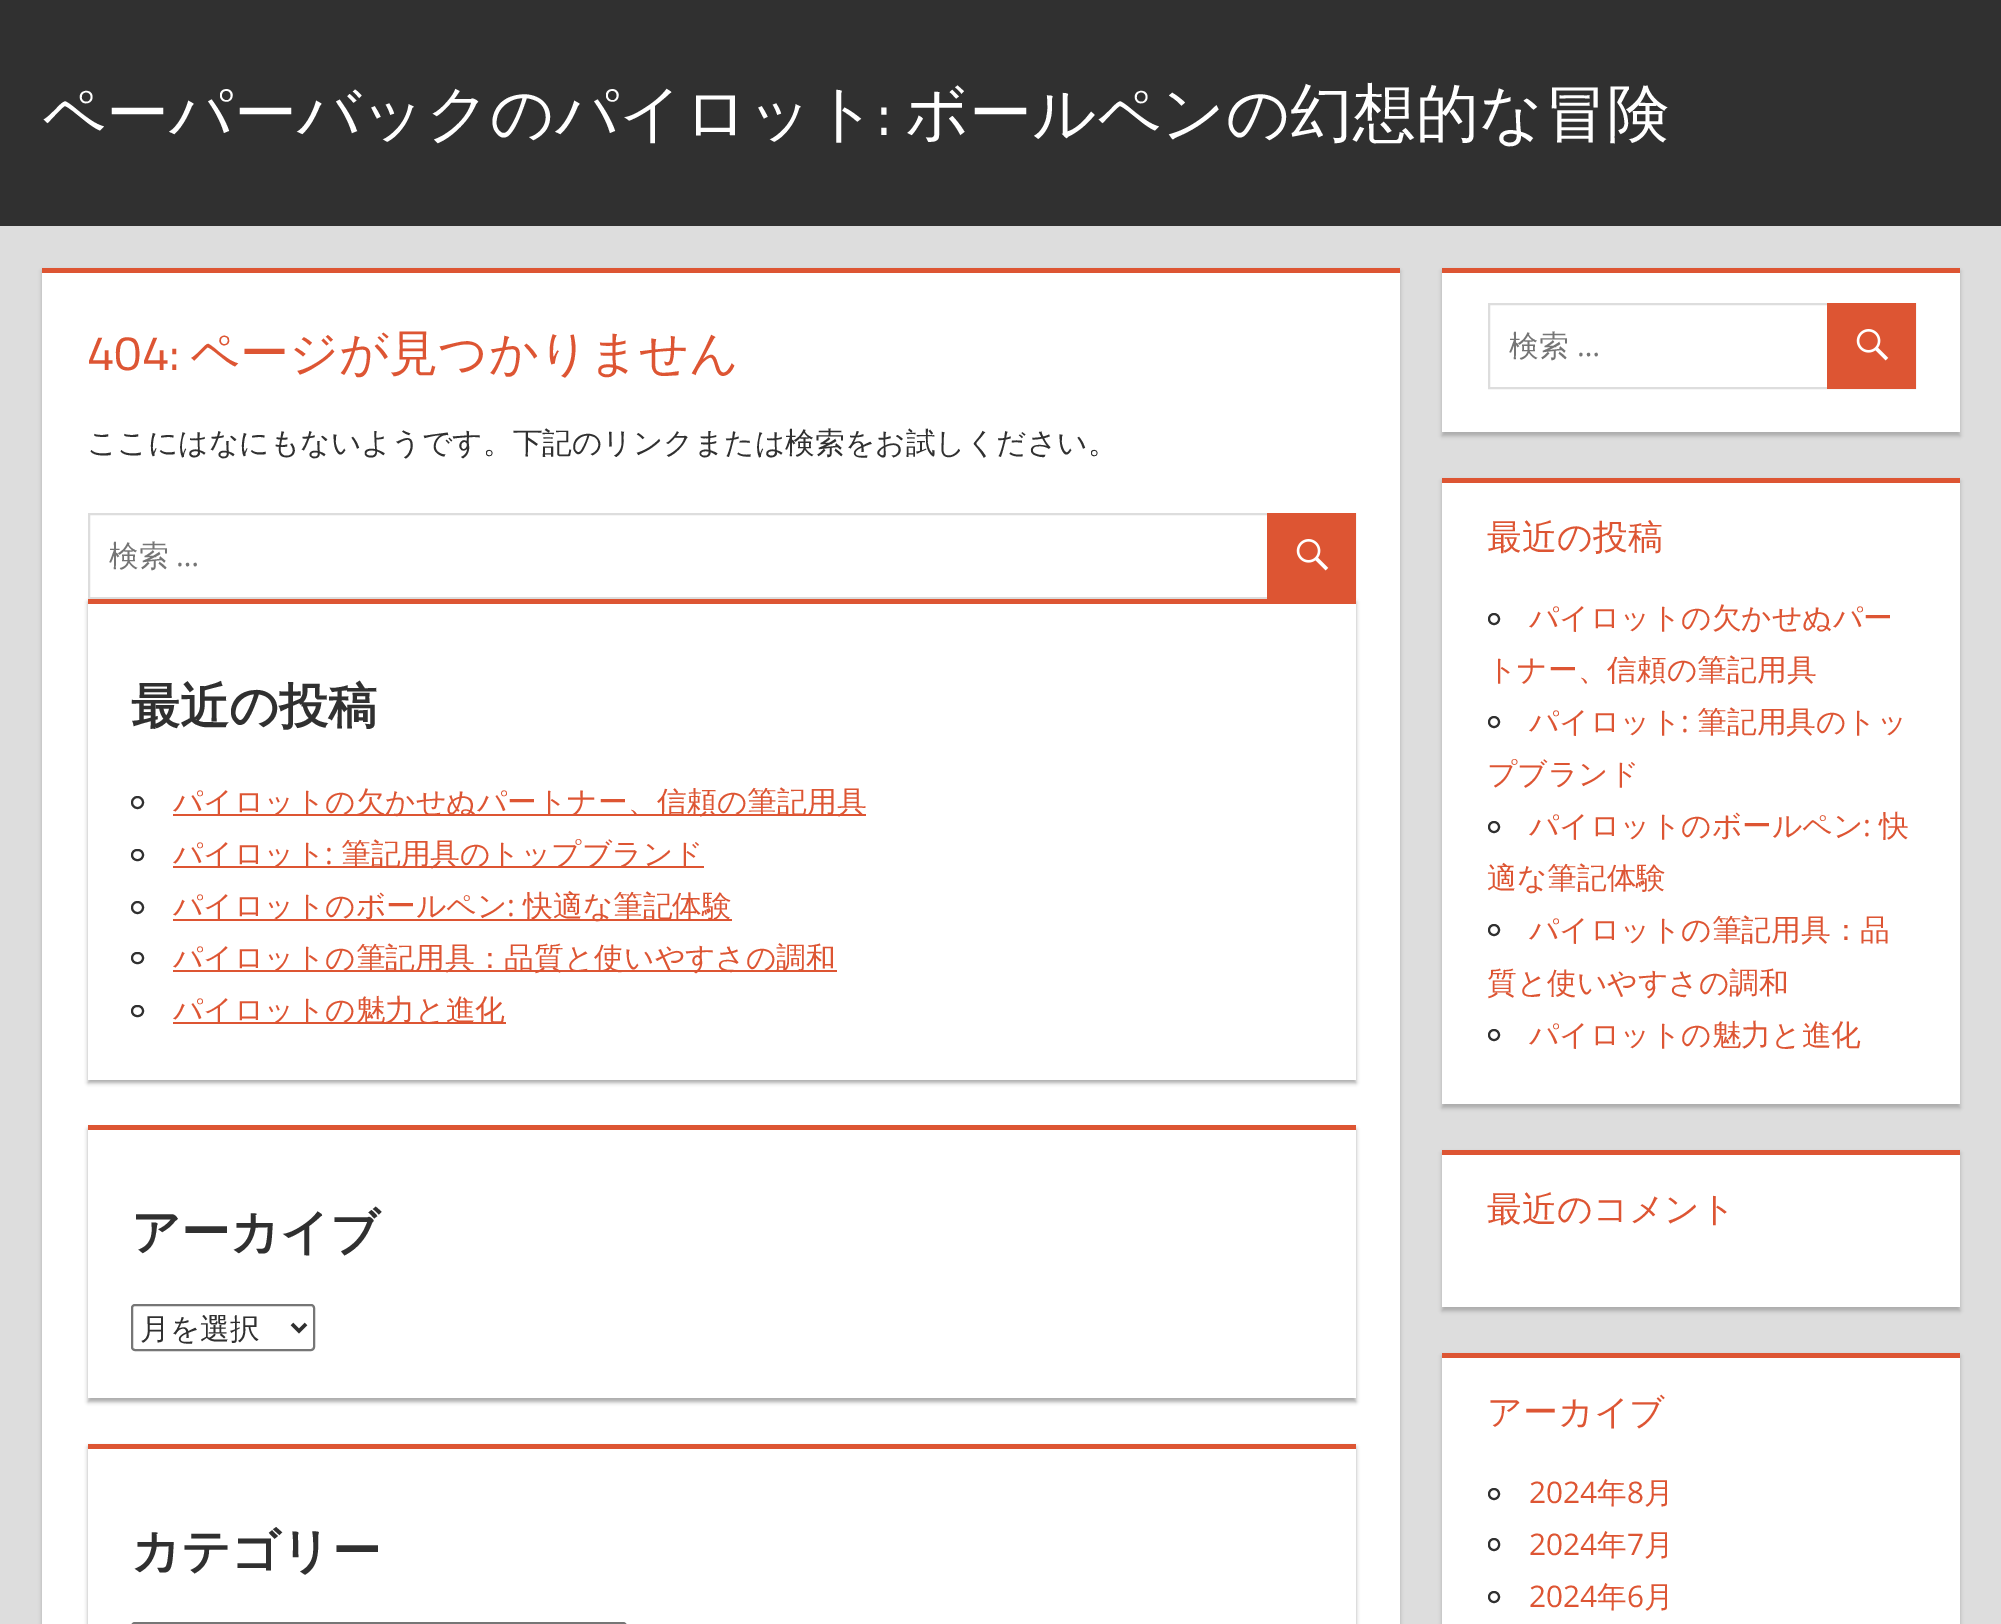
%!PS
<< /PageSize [2001 1624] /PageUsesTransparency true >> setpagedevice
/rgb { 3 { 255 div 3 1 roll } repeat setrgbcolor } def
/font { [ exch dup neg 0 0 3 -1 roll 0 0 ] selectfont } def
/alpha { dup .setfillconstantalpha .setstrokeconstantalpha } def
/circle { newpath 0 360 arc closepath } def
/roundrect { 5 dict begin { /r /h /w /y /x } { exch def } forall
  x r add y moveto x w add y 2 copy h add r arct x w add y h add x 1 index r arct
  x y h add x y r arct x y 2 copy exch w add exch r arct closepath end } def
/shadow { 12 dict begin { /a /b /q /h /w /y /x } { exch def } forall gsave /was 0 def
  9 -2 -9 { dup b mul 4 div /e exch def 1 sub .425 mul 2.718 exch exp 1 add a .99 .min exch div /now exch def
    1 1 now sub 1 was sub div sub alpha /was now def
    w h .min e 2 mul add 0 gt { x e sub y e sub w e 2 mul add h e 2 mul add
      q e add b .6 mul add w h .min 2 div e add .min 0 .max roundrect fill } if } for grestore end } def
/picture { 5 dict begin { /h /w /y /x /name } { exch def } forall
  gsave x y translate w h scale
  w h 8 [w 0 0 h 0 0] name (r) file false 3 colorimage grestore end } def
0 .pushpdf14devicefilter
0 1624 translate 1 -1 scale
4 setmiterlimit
221 221 221 rgb
0 0 2001 1624 rectfill
48 48 48 rgb
0 0 2001 226 rectfill
170 170 170 rgb
42 271 1358 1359 0 2 1 shadow
255 255 255 rgb
42 273 1358 1351 rectfill
221 85 51 rgb
42 268 1358 5 rectfill
170 170 170 rgb
88 602 1268 481 0 2 1 shadow
221 221 221 rgb
2 setlinewidth
89 514 1266 84 rectstroke
221 85 51 rgb
1267 513 89 86 rectfill
(img/1.rgb) 1296 539 33 32 picture
255 255 255 rgb
88 604 1268 476 rectfill
221 85 51 rgb
88 599 1268 5 rectfill
48 48 48 rgb
137.5 802.5 5.5 circle stroke
221 85 51 rgb
173 814 693 2 rectfill
48 48 48 rgb
132 850 11 10 5 roundrect stroke
221 85 51 rgb
173 866 531 2 rectfill
48 48 48 rgb
137.5 907.5 5.5 circle stroke
221 85 51 rgb
173 919 559 2 rectfill
48 48 48 rgb
132 953 11 10 5 roundrect stroke
221 85 51 rgb
173 970 664 2 rectfill
48 48 48 rgb
132 1006 11 10 5 roundrect stroke
221 85 51 rgb
173 1022 333 2 rectfill
gsave
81 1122 moveto 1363 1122 lineto 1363 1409 lineto 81 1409 lineto closepath 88 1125 moveto 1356 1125 lineto 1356 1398 lineto 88 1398 lineto closepath eoclip newpath
170 170 170 rgb
88 1129 1268 273 0 2 1 shadow
grestore
88 1125 1268 5 rectfill
118 118 118 rgb
132 1305 182 45 3 roundrect stroke
48 48 48 rgb
3.5 setlinewidth
292 1324 moveto 299 1331 lineto 306 1324 lineto stroke
gsave
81 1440 moveto 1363 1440 lineto 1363 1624 lineto 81 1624 lineto closepath 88 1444 moveto 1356 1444 lineto 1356 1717 lineto 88 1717 lineto closepath eoclip newpath
170 170 170 rgb
88 1447 1268 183 0 2 1 shadow
grestore
221 85 51 rgb
88 1444 1268 5 rectfill
118 118 118 rgb
2 setlinewidth
132 1623 494 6 3 roundrect stroke
170 170 170 rgb
1442 271 518 165 0 2 1 shadow
255 255 255 rgb
1442 273 518 159 rectfill
221 85 51 rgb
1442 268 518 5 rectfill
221 221 221 rgb
1489 304 426 84 rectstroke
221 85 51 rgb
1827 303 89 86 rectfill
(img/1.rgb) 1856 329 33 32 picture
170 170 170 rgb
1442 481 518 627 0 2 1 shadow
255 255 255 rgb
1442 483 518 621 rectfill
221 85 51 rgb
1442 478 518 5 rectfill
48 48 48 rgb
1494 619 5 circle stroke
1494 722 5 circle stroke
1494 827 5 circle stroke
1494 930 5 circle stroke
1494 1035 5 circle stroke
170 170 170 rgb
1442 1153 518 158 0 2 1 shadow
255 255 255 rgb
1442 1155 518 152 rectfill
221 85 51 rgb
1442 1150 518 5 rectfill
170 170 170 rgb
1442 1356 518 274 0 2 1 shadow
255 255 255 rgb
1442 1358 518 266 rectfill
221 85 51 rgb
1442 1353 518 5 rectfill
48 48 48 rgb
1494 1494 5 circle stroke
1489 1539 10 11 5 roundrect stroke
1494 1597 5 circle stroke
/WenQuanYiZenHei-Medium 63 font
255 255 255 rgb
42 135 moveto (ペーパーバックのパイロット) show
/TitilliumWeb-Regular 63 font
877 135 moveto (:) show
/WenQuanYiZenHei-Medium 63 font
905 135 moveto (ボールペンの幻想的な冒険) show
/TitilliumWeb-Regular 49 font
221 85 51 rgb
87 370 moveto (404:) show
/WenQuanYiZenHei-Medium 49 font
190 370 moveto (ページが見つかりません) show
/WenQuanYiZenHei-Medium 29.75 font
48 48 48 rgb
87 453 moveto (ここにはなにもないようです。下記のリンクまたは検索をお試しください。) show
117 117 117 rgb
109 566 moveto (検索) show
/OpenSans-Regular 29.75 font
176 566 moveto (…) show
/WenQuanYiZenHei-Bold 49 font
48 48 48 rgb
131 723 moveto (最近の投稿) show
/WenQuanYiZenHei-Medium 29.75 font
221 85 51 rgb
173 812 moveto (パイロットの欠かせぬパートナー、信頼の筆記用具) show
173 864 moveto (パイロット) show
/OpenSans-Regular 29.75 font
325 864 moveto (:) show
/WenQuanYiZenHei-Medium 29.75 font
341 864 moveto (筆記用具のトップブランド) show
173 916 moveto (パイロットのボールペン) show
/OpenSans-Regular 29.75 font
507 916 moveto (:) show
/WenQuanYiZenHei-Medium 29.75 font
[
  [(快適な筆記体験) 523 916]
  [(パイロットの筆記用具：品質と使いやすさの調和) 173 968]
  [(パイロットの魅力と進化) 173 1020]
] { aload pop moveto show } forall
/WenQuanYiZenHei-Bold 49 font
48 48 48 rgb
131 1249 moveto (アーカイブ) show
/WenQuanYiZenHei-Medium 29.75 font
140 1339 moveto (月を選択) show
/WenQuanYiZenHei-Bold 49 font
131 1568 moveto (カテゴリー) show
/WenQuanYiZenHei-Medium 29.75 font
117 117 117 rgb
1509 356 moveto (検索) show
/OpenSans-Regular 29.75 font
1577 356 moveto (…) show
/WenQuanYiZenHei-Medium 35 font
221 85 51 rgb
1487 549 moveto (最近の投稿) show
/WenQuanYiZenHei-Medium 29.75 font
[
  [(パイロットの欠かせぬパー) 1529 628]
  [(トナー、信頼の筆記用具) 1487 680]
  [(パイロット) 1529 732]
] { aload pop moveto show } forall
/OpenSans-Regular 29.75 font
1681 732 moveto (:) show
/WenQuanYiZenHei-Medium 29.75 font
[
  [(筆記用具のトッ) 1697 732]
  [(プブランド) 1487 784]
  [(パイロットのボールペン) 1529 836]
] { aload pop moveto show } forall
/OpenSans-Regular 29.75 font
1863 836 moveto (:) show
/WenQuanYiZenHei-Medium 29.75 font
[
  [(快) 1879 836]
  [(適な筆記体験) 1487 888]
  [(パイロットの筆記用具：品) 1529 940]
  [(質と使いやすさの調和) 1487 993]
  [(パイロットの魅力と進化) 1529 1045]
] { aload pop moveto show } forall
/WenQuanYiZenHei-Medium 35 font
1487 1221 moveto (最近のコメント) show
1487 1424 moveto (アーカイブ) show
/OpenSans-Regular 29.75 font
1529 1503 moveto (2024) show
/WenQuanYiZenHei-Medium 29.75 font
1597 1503 moveto (年) show
/OpenSans-Regular 29.75 font
1627 1503 moveto (8) show
/WenQuanYiZenHei-Medium 29.75 font
1644 1503 moveto (月) show
/OpenSans-Regular 29.75 font
1529 1555 moveto (2024) show
/WenQuanYiZenHei-Medium 29.75 font
1597 1555 moveto (年) show
/OpenSans-Regular 29.75 font
1627 1555 moveto (7) show
/WenQuanYiZenHei-Medium 29.75 font
1644 1555 moveto (月) show
/OpenSans-Regular 29.75 font
1529 1607 moveto (2024) show
/WenQuanYiZenHei-Medium 29.75 font
1597 1607 moveto (年) show
/OpenSans-Regular 29.75 font
1627 1607 moveto (6) show
/WenQuanYiZenHei-Medium 29.75 font
1644 1607 moveto (月) show
.poppdf14devicefilter showpage
